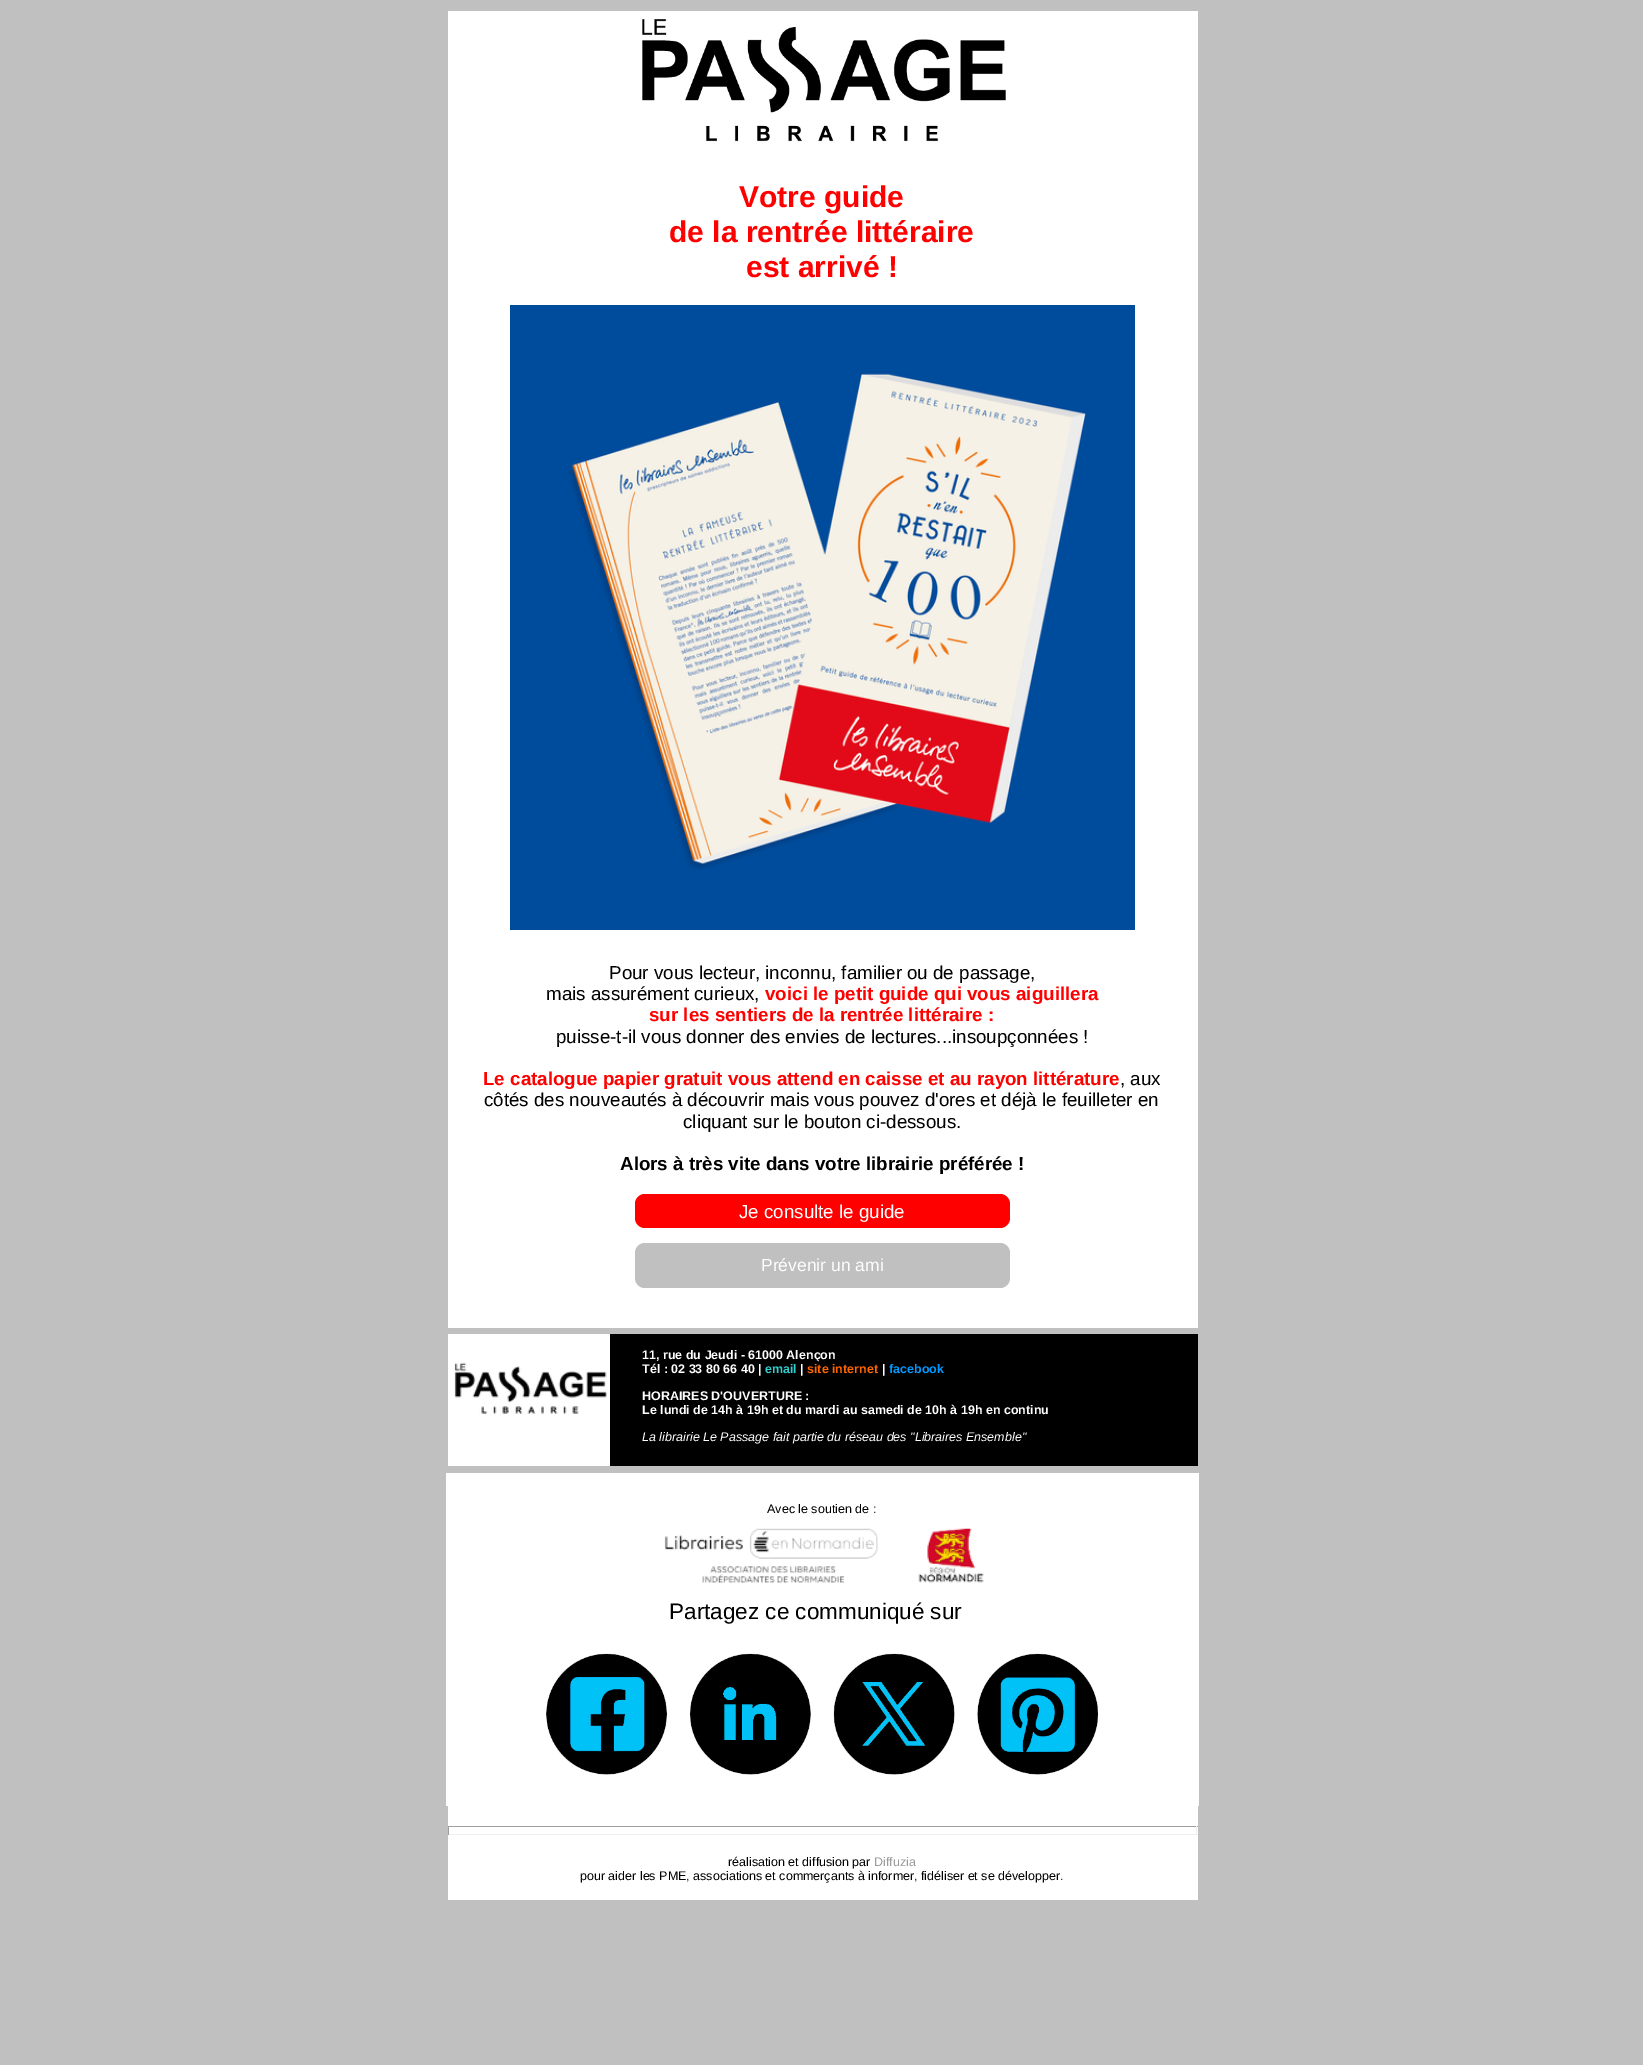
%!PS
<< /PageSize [1643 2065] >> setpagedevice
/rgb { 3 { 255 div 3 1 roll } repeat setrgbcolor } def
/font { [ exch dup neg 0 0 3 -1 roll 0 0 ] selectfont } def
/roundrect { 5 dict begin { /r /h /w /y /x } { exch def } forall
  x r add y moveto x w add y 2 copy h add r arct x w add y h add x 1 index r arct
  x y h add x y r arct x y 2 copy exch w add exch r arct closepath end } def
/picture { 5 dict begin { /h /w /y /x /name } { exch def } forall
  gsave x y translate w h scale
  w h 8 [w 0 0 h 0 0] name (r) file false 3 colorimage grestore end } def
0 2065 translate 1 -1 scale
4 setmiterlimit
192 192 192 rgb
0 0 1643 2065 rectfill
255 255 255 rgb
448 11 750 1317 rectfill
(img/1.rgb) 642 19 364 123 picture
(img/2.rgb) 510 305 625 625 picture
255 0 0 rgb
635 1194 375 34 10 roundrect fill
192 192 192 rgb
635 1243 375 45 10 roundrect fill
255 255 255 rgb
448 1334 162 132 rectfill
(img/3.rgb) 454 1362 153 52 picture
0 0 0 rgb
610 1334 588 132 rectfill
255 255 255 rgb
446 1473 753 333 rectfill
(img/4.rgb) 664 1528 320 55 picture
(img/5.rgb) 546 1653 121 122 picture
(img/6.rgb) 690 1653 121 122 picture
(img/7.rgb) 833 1653 122 122 picture
(img/8.rgb) 977 1653 121 122 picture
[
  [448 1806 750 94 255 255 255]
  [448 1826 750 1 159 159 159]
  [1196 1826 1 9 238 238 238]
  [448 1834 750 1 238 238 238]
  [448 1826 1 9 159 159 159]
] { aload pop rgb rectfill } forall
/LiberationSans-Bold 30 font
255 0 0 rgb
[
  [(Votre guide) 739 207]
  [(de la rentrée littéraire) 669 242]
  [(est arrivé !) 746 277]
] { aload pop moveto show } forall
/LiberationSans-Regular 18.75 font
0 0 0 rgb
609 979 moveto (Pour vous lecteur, inconnu, familier ou de passage,) show
546 1000 moveto (mais assurément curieux,) show
/LiberationSans-Bold 18.75 font
255 0 0 rgb
765 1000 moveto (voici le petit guide qui vous aiguillera) show
649 1021 moveto (sur les sentiers de la rentrée littéraire :) show
/LiberationSans-Regular 18.75 font
0 0 0 rgb
556 1043 moveto (puisse-t-il vous donner des envies de lectures...insoupçonnées !) show
/LiberationSans-Bold 18.75 font
255 0 0 rgb
483 1085 moveto (Le catalogue papier gratuit vous attend en caisse et au rayon littérature) show
/LiberationSans-Regular 18.75 font
0 0 0 rgb
[
  [(, aux) 1120 1085]
  [(côtés des nouveautés à découvrir mais vous pouvez d'ores et déjà le feuilleter en) 484 1106]
  [(cliquant sur le bouton ci-dessous.) 683 1128]
] { aload pop moveto show } forall
/LiberationSans-Bold 18.75 font
620 1170 moveto (Alors à très vite dans votre librairie préférée !) show
/LiberationSans-Regular 18.75 font
255 255 255 rgb
739 1218 moveto (Je consulte le guide) show
/LiberationSans-Regular 17.5 font
761 1271 moveto (Prévenir un ami) show
/LiberationSans-Bold 12.5 font
642 1359 moveto (11, rue du Jeudi - 61000 Alençon) show
642 1373 moveto (Tél : 02 33 80 66 40 |) show
51 204 204 rgb
765 1373 moveto (email) show
255 255 255 rgb
800 1373 moveto (|) show
255 102 0 rgb
807 1373 moveto (site internet) show
0 0 0 rgb
815 1361 3 1 rectfill
255 255 255 rgb
882 1373 moveto (|) show
0 153 255 rgb
889 1373 moveto (facebook) show
255 255 255 rgb
642 1400 moveto (HORAIRES D'OUVERTURE :) show
642 1414 moveto (Le lundi de 14h à 19h et du mardi au samedi de 10h à 19h en continu) show
/LiberationSans-Italic 12.5 font
642 1441 moveto (La librairie Le Passage fait partie du réseau des "Libraires Ensemble") show
/LiberationSans-Regular 12.5 font
0 0 0 rgb
767 1513 moveto (Avec le soutien de :) show
/LiberationSans-Regular 22.5 font
669 1619 moveto (Partagez ce communiqué sur) show
/LiberationSans-Regular 12.5 font
728 1866 moveto (réalisation et diffusion par) show
155 155 155 rgb
874 1866 moveto (Diffuzia) show
0 0 0 rgb
580 1880 moveto (pour aider les PME, associations et commerçants à informer, fidéliser et se développer.) show
showpage
